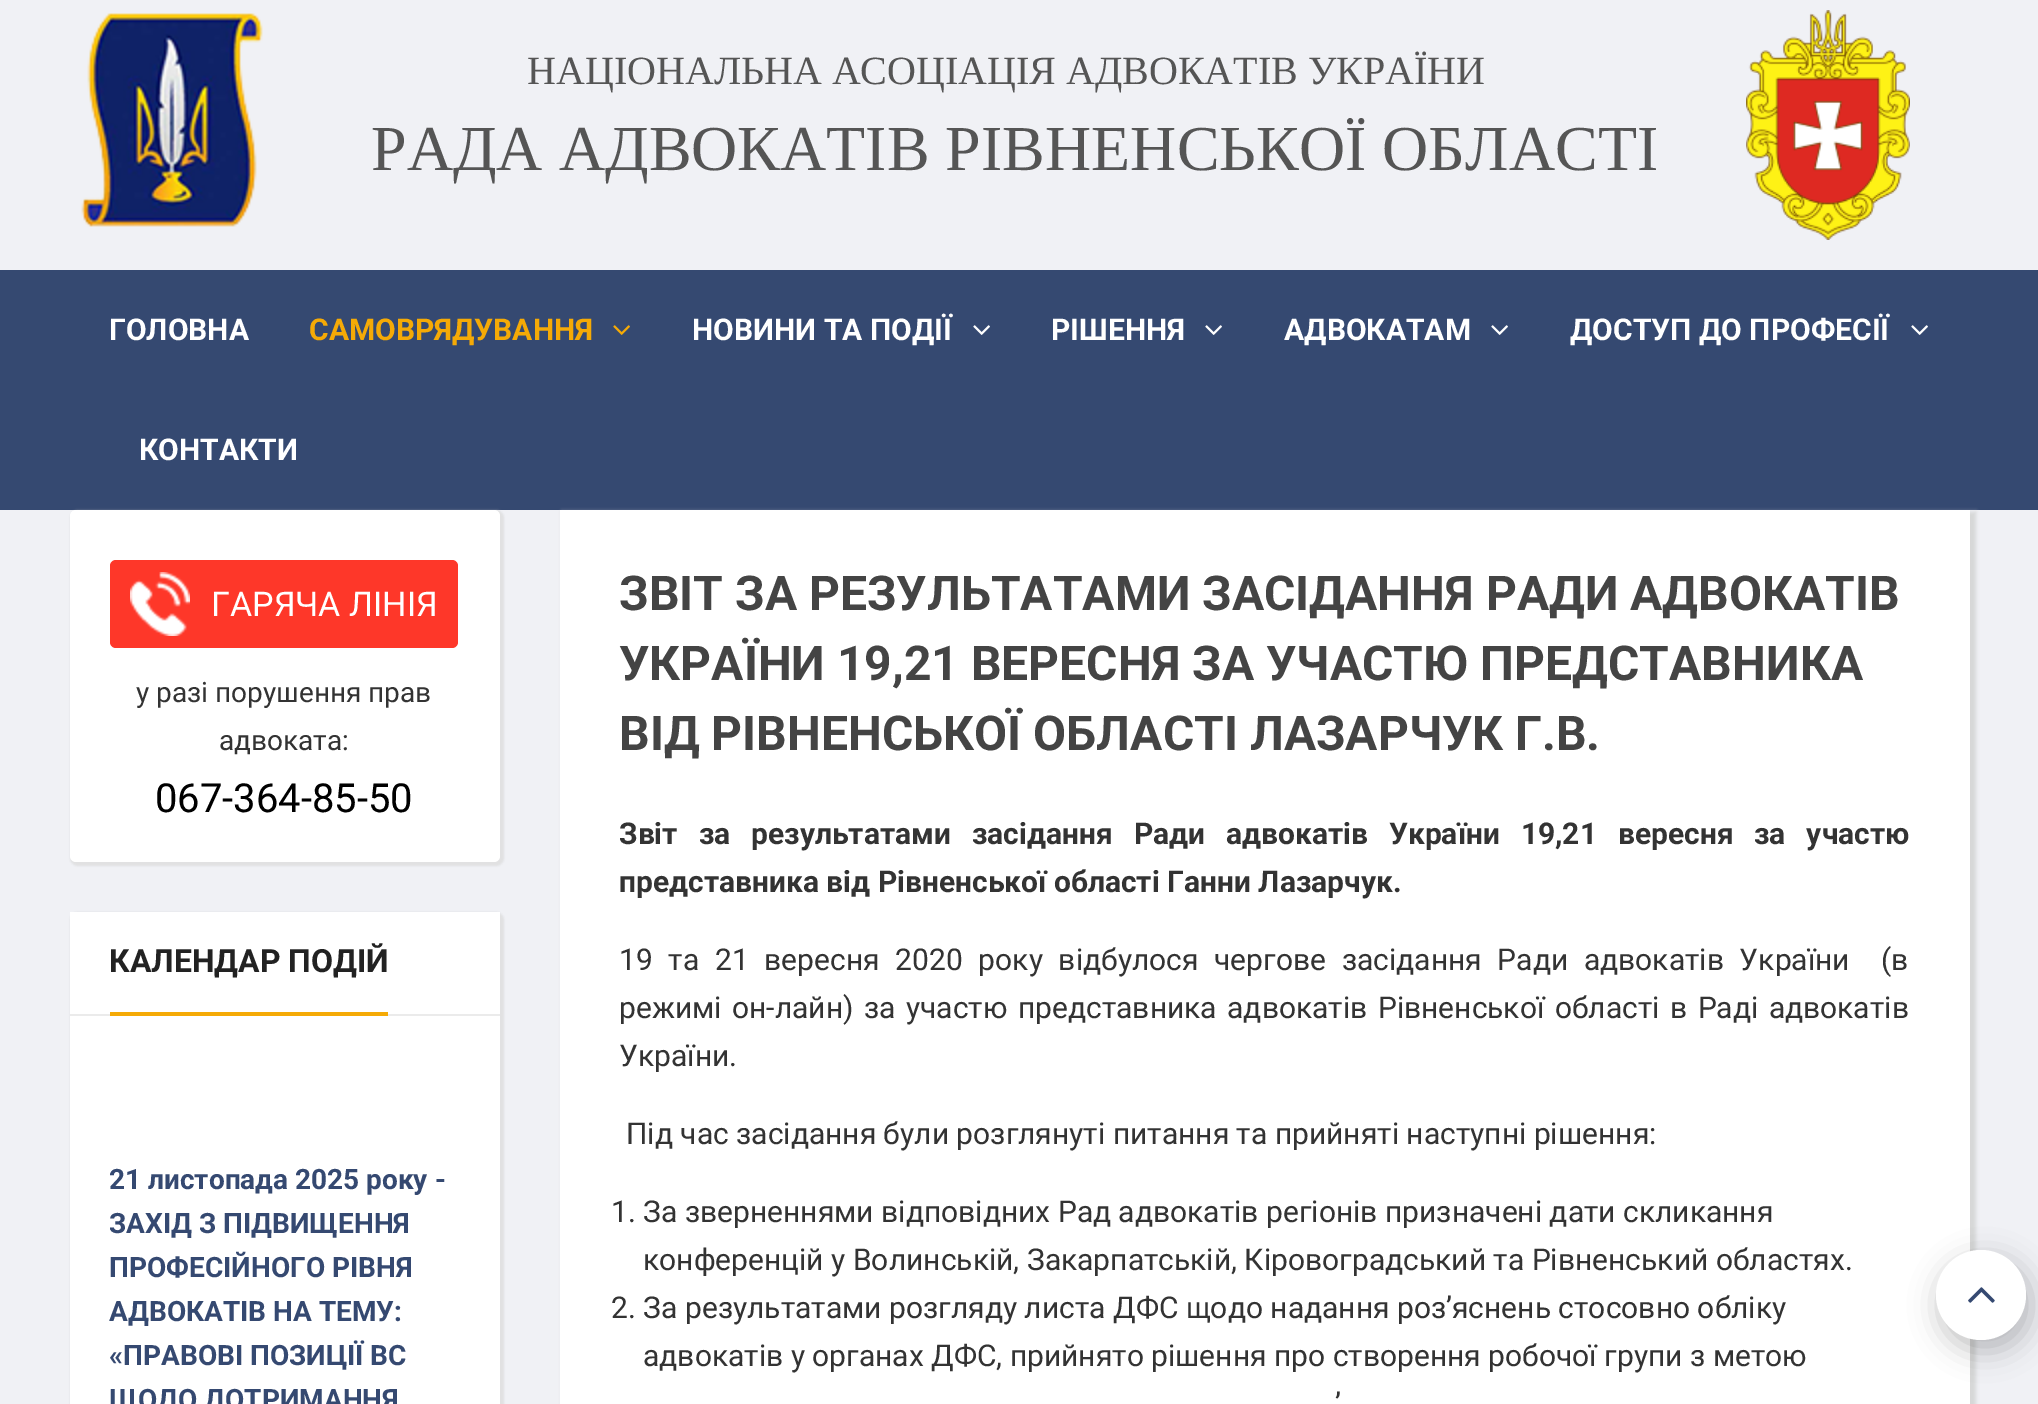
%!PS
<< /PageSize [2038 1404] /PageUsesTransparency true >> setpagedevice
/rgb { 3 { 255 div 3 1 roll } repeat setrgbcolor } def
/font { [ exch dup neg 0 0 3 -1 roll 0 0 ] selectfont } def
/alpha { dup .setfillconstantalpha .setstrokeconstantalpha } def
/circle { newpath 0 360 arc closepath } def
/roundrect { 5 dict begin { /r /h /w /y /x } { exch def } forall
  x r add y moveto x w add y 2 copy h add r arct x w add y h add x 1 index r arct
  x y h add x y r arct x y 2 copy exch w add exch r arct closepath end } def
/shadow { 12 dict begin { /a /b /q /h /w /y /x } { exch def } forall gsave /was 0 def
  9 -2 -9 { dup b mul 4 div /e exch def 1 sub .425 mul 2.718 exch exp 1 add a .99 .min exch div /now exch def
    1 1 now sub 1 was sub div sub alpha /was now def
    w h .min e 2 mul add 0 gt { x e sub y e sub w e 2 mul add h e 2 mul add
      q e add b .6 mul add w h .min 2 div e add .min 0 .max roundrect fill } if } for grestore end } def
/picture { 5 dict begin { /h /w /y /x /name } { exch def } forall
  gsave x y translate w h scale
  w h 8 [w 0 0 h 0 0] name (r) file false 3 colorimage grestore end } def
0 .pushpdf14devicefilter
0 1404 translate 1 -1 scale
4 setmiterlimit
240 241 245 rgb
0 0 2038 1404 rectfill
(img/1.rgb) 81 13 182 214 picture
(img/2.rgb) 1746 10 164 230 picture
53 73 113 rgb
0 270 2038 240 rectfill
(img/3.rgb) 613 325 17 10 picture
(img/4.rgb) 973 325 17 10 picture
(img/4.rgb) 1205 325 17 10 picture
(img/4.rgb) 1491 325 17 10 picture
(img/4.rgb) 1911 325 17 10 picture
202 202 202 rgb
70 510 434 356 8 1 0.43 shadow
255 255 255 rgb
70 510 430 352 6 roundrect fill
254 55 41 rgb
110 560 348 88 6 roundrect fill
(img/5.rgb) 130 572 60 64 picture
202 202 202 rgb
70 912 434 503 8 1 0.43 shadow
[
  [70 912 430 492 255 255 255]
  [70 1014 430 2 235 235 235]
  [110 1012 278 4 245 170 6]
] { aload pop rgb rectfill } forall
214 214 214 rgb
562 512 1414 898 0 2 1 shadow
255 255 255 rgb
560 510 1410 894 rectfill
0 0 0 rgb
1938 1258 94 94 47 14 0.22 shadow
255 255 255 rgb
1981 1295 45 circle fill
(img/6.rgb) 1968 1287 27 16 picture
/LiberationSerif-Regular 40 font
85 85 85 rgb
527 84 moveto (НАЦІОНАЛЬНА АСОЦІАЦІЯ АДВОКАТІВ УКРАЇНИ) show
/LiberationSerif-Regular 64 font
371 170 moveto (РАДА АДВОКАТІВ РІВНЕНСЬКОЇ ОБЛАСТІ) show
/Roboto-Bold 30 font
255 255 255 rgb
109 340 moveto (ГОЛОВНА) show
245 170 6 rgb
309 340 moveto (САМОВРЯДУВАННЯ) show
255 255 255 rgb
[
  [(НОВИНИ ТА ПОДІЇ) 692 340]
  [(РІШЕННЯ) 1051 340]
  [(АДВОКАТАМ) 1284 340]
  [(ДОСТУП ДО ПРОФЕСІЇ) 1570 340]
  [(КОНТАКТИ) 139 460]
] { aload pop moveto show } forall
/Roboto-Regular 34 font
211 616 moveto (ГАРЯЧА ЛІНІЯ) show
/Roboto-Regular 28 font
51 51 51 rgb
136 702 moveto (у разі порушення прав) show
219 750 moveto (адвоката:) show
/Roboto-Regular 40 font
0 0 0 rgb
155 812 moveto (067-364-85-50) show
/Roboto-Bold 32 font
34 34 34 rgb
109 972 moveto (КАЛЕНДАР ПОДІЙ) show
/Roboto-Bold 28 font
53 73 113 rgb
[
  [(21 листопада 2025 року -) 109 1189]
  [(ЗАХІД З ПІДВИЩЕННЯ) 109 1233]
  [(ПРОФЕСІЙНОГО РІВНЯ) 109 1277]
  [(АДВОКАТІВ НА ТЕМУ:) 109 1321]
  [(«ПРАВОВІ ПОЗИЦІЇ ВС) 109 1365]
  [(ЩОДО ДОТРИМАННЯ) 109 1409]
] { aload pop moveto show } forall
/Roboto-Bold 48 font
68 68 68 rgb
[
  [(ЗВІТ ЗА РЕЗУЛЬТАТАМИ ЗАСІДАННЯ РАДИ АДВОКАТІВ) 619 610]
  [(УКРАЇНИ 19,21 ВЕРЕСНЯ ЗА УЧАСТЮ ПРЕДСТАВНИКА) 619 680]
  [(ВІД РІВНЕНСЬКОЇ ОБЛАСТІ ЛАЗАРЧУК Г.В.) 619 750]
] { aload pop moveto show } forall
/Roboto-Bold 30 font
51 51 51 rgb
619 844 moveto 13.5 0 32 (Звіт за результатами засідання Ради адвокатів України 19,21 вересня) widthshow
1754 844 moveto 13.5 0 32 (за участю) widthshow
619 892 moveto (представника від Рівненської області Ганни Лазарчук.) show
/Roboto-Regular 30 font
619 970 moveto 8.25 0 32 (19 та 21 вересня 2020 року відбулося чергове засідання Ради адвокатів України  \(в) widthshow
619 1018 moveto 3 0 32 (режимі он-лайн\) за участю представника адвокатів Рівненської області в Раді адвокатів) widthshow
[
  [(України.) 619 1066]
  [(Під час засідання були розглянуті питання та прийняті наступні рішення:) 626 1144]
  [(1. За зверненнями відповідних Рад адвокатів регіонів призначені дати скликання) 611 1222]
  [(конференцій у Волинській, Закарпатській, Кіровоградський та Рівненський областях.) 643 1270]
  [(2. За результатами розгляду листа ДФС щодо надання роз’яснень стосовно обліку) 611 1318]
  [(адвокатів у органах ДФС, прийнято рішення про створення робочої групи з метою) 643 1366]
  [(’) 1335 1414]
] { aload pop moveto show } forall
.poppdf14devicefilter showpage
